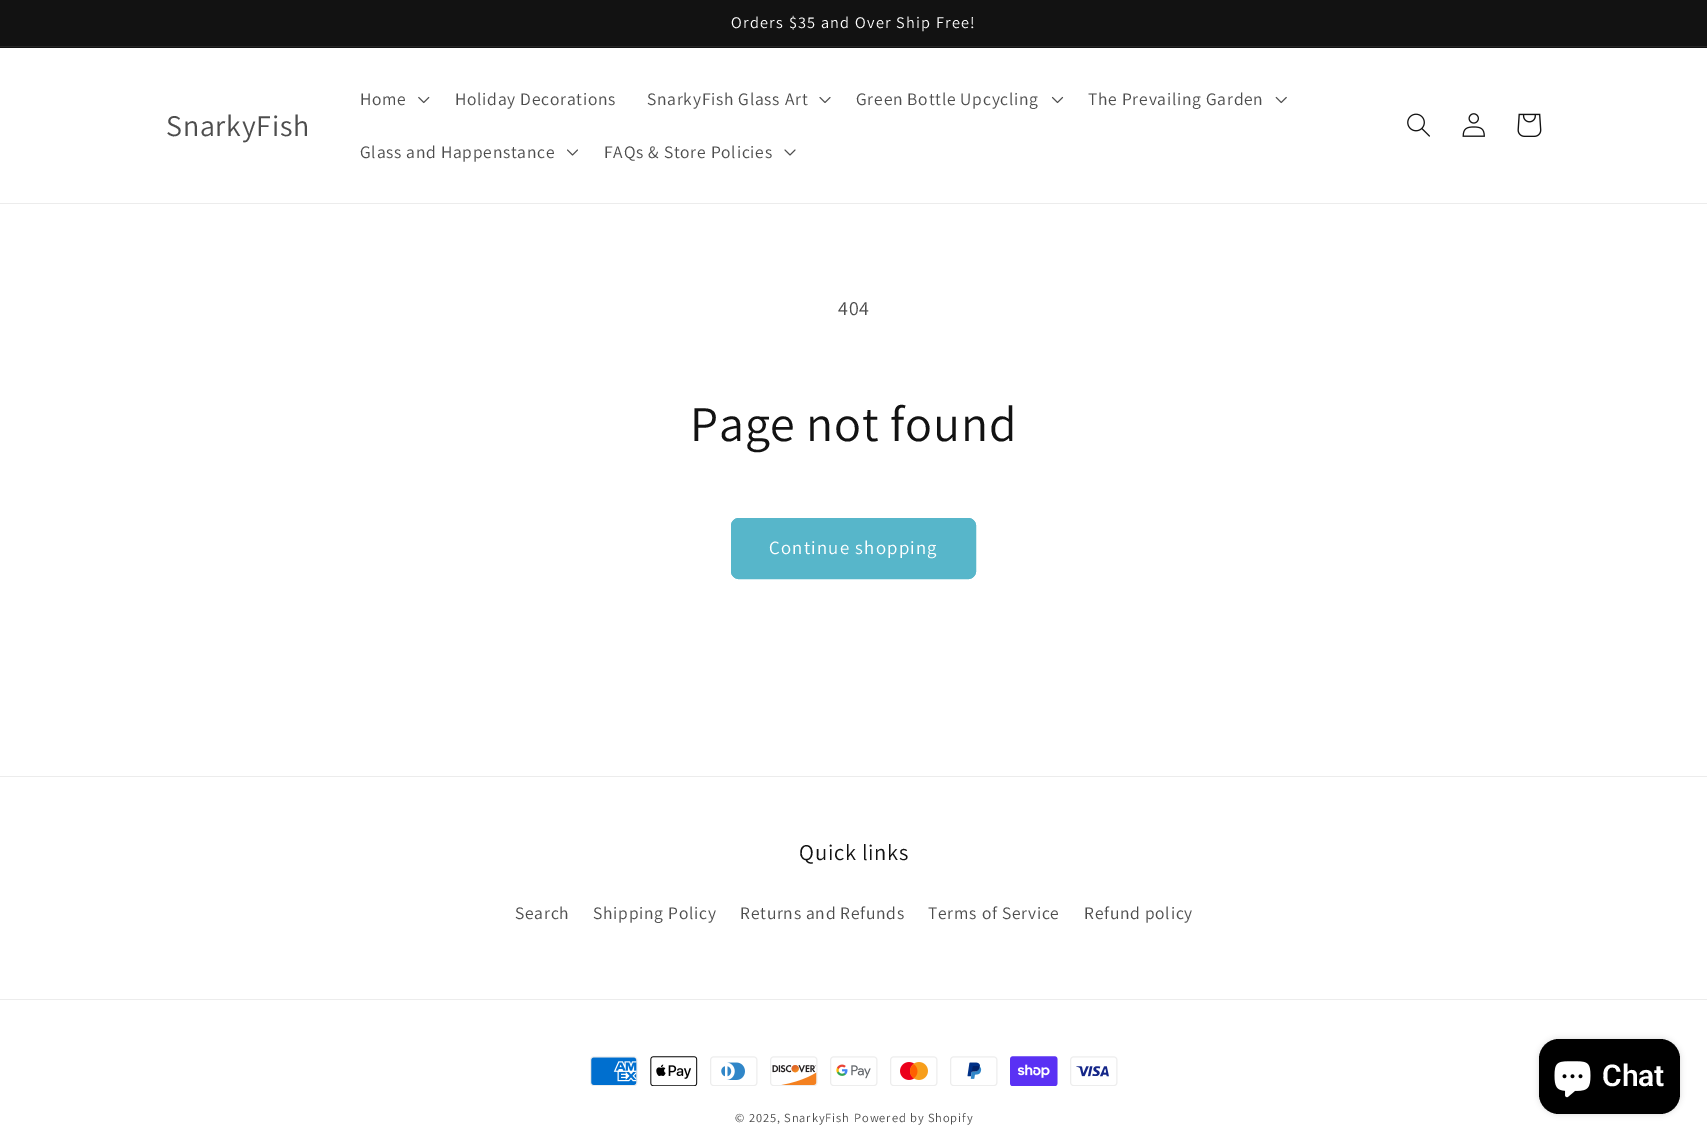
%!PS
<< /PageSize [1707 1140] /PageUsesTransparency true >> setpagedevice
/rgb { 3 { 255 div 3 1 roll } repeat setrgbcolor } def
/font { [ exch dup neg 0 0 3 -1 roll 0 0 ] selectfont } def
/alpha { dup .setfillconstantalpha .setstrokeconstantalpha } def
/roundrect { 5 dict begin { /r /h /w /y /x } { exch def } forall
  x r add y moveto x w add y 2 copy h add r arct x w add y h add x 1 index r arct
  x y h add x y r arct x y 2 copy exch w add exch r arct closepath end } def
/shadow { 12 dict begin { /a /b /q /h /w /y /x } { exch def } forall gsave /was 0 def
  9 -2 -9 { dup b mul 4 div /e exch def 1 sub .425 mul 2.718 exch exp 1 add a .99 .min exch div /now exch def
    1 1 now sub 1 was sub div sub alpha /was now def
    w h .min e 2 mul add 0 gt { x e sub y e sub w e 2 mul add h e 2 mul add
      q e add b .6 mul add w h .min 2 div e add .min 0 .max roundrect fill } if } for grestore end } def
/picture { 5 dict begin { /h /w /y /x /name } { exch def } forall
  gsave x y translate w h scale
  w h 8 [w 0 0 h 0 0] name (r) file false 3 colorimage grestore end } def
0 .pushpdf14devicefilter
0 1140 translate 1 -1 scale
4 setmiterlimit
255 255 255 rgb
0 0 1707 1140 rectfill
[
  [0 0 1707 48 18 18 18]
  [0 46 1707 1 37 37 37]
  [0 203 1707 1 236 236 236]
] { aload pop rgb rectfill } forall
(img/1.rgb) 418 96 12 8 picture
(img/2.rgb) 819 97 12 6 picture
(img/3.rgb) 1051 96 13 8 picture
(img/4.rgb) 1275 96 12 8 picture
(img/5.rgb) 567 149 11 7 picture
(img/6.rgb) 784 149 12 7 picture
(img/7.rgb) 1407 113 23 24 picture
(img/8.rgb) 1462 113 23 24 picture
(img/9.rgb) 1517 113 25 24 picture
87 182 202 rgb
731 518 245 61 8 roundrect fill
3 setlinewidth
732.5 519.5 242 58 6.5 roundrect stroke
236 236 236 rgb
0 776 1707 1 rectfill
0 999 1707 1 rectfill
(img/10.rgb) 590 1056 48 30 picture
(img/11.rgb) 650 1056 48 30 picture
(img/12.rgb) 710 1056 48 30 picture
(img/13.rgb) 770 1056 48 30 picture
(img/14.rgb) 830 1056 48 30 picture
(img/15.rgb) 890 1056 48 30 picture
(img/16.rgb) 950 1056 48 30 picture
(img/17.rgb) 1010 1056 48 30 picture
(img/18.rgb) 1070 1056 48 30 picture
0 0 0 rgb
1539 1039 141 75 20 3 0.15 shadow
1539 1039 141 75 20 roundrect fill
(img/19.rgb) 1554 1061 37 37 picture
/Assistant-Regular 16.25 font
255 255 255 rgb
731 28 moveto 1.25 0 (Orders $35 and Over Ship Free!) ashow
/Assistant-Regular 30 font
77 77 77 rgb
166 136 moveto 0.75 0 (SnarkyFish) ashow
/Assistant-Regular 17.5 font
360 105 moveto 0.75 0 (Home) ashow
455 105 moveto 0.75 0 (Holiday Decorations) ashow
647 105 moveto 0.75 0 (SnarkyFish Glass Art) ashow
856 105 moveto 0.75 0 (Green Bottle Upcycling) ashow
1088 105 moveto 0.75 0 (The Prevailing Garden) ashow
360 158 moveto 0.75 0 (Glass and Happenstance) ashow
604 158 moveto 0.75 0 (FAQs & Store Policies) ashow
/Assistant-Regular 20 font
838 315 moveto 0.75 0 (404) ashow
/Assistant-Regular 50 font
18 18 18 rgb
690 441 moveto 0.75 0 (Page not found) ashow
/Assistant-Regular 18.75 font
255 255 255 rgb
769 554 moveto 1.25 0 (Continue shopping) ashow
/Assistant-Regular 22.5 font
18 18 18 rgb
799 860 moveto 0.75 0 (Quick links) ashow
/Assistant-Regular 17.5 font
77 77 77 rgb
515 919 moveto 0.75 0 (Search) ashow
593 919 moveto 0.75 0 (Shipping Policy) ashow
740 919 moveto 0.75 0 (Returns and Refunds) ashow
928 919 moveto 0.75 0 (Terms of Service) ashow
1084 919 moveto 0.75 0 (Refund policy) ashow
/Assistant-Regular 12.5 font
735 1122 moveto 0.9 0 (© 2025, SnarkyFish) ashow
854 1122 moveto 0.9 0 (Powered by Shopify) ashow
/Roboto-SemiBold 30 font
255 255 255 rgb
1602 1086 moveto (Chat) show
.poppdf14devicefilter showpage
